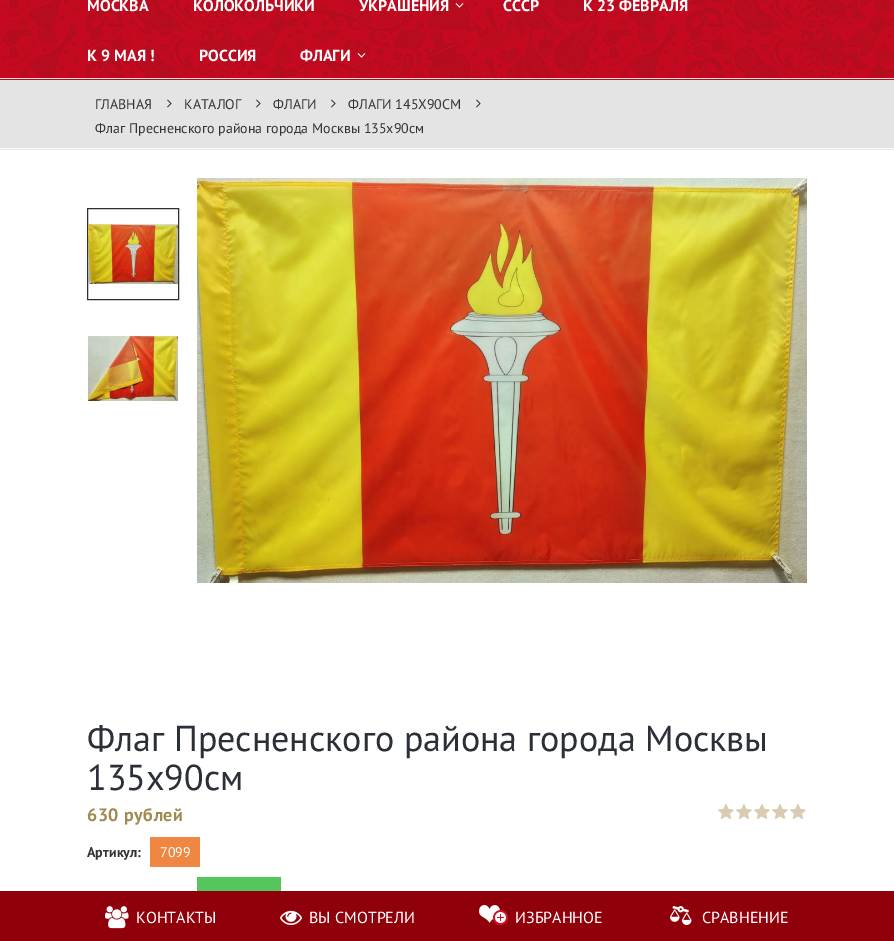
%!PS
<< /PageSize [894 941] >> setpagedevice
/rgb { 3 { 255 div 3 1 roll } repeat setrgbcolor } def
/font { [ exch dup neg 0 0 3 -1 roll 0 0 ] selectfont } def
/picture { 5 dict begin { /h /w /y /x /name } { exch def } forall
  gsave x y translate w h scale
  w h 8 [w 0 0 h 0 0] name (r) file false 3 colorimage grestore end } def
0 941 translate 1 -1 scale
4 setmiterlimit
255 255 255 rgb
0 0 894 941 rectfill
(img/1.rgb) 0 0 894 80 picture
(img/2.rgb) 455 3 9 5 picture
(img/3.rgb) 357 53 9 5 picture
228 228 228 rgb
0 80 894 68 rectfill
0 78 894 1 rectfill
(img/4.rgb) 167 99 5 9 picture
(img/4.rgb) 256 99 5 9 picture
(img/4.rgb) 331 99 5 9 picture
(img/4.rgb) 476 99 5 9 picture
0 149 894 1 rectfill
43 48 56 rgb
87.5 208.5 91 91 rectstroke
(img/5.rgb) 88 224 90 60 picture
(img/6.rgb) 88 336 90 65 picture
(img/7.rgb) 197 178 610 405 picture
(img/8.rgb) 718 804 88 15 picture
[
  [150 837 50 30 239 135 67]
  [197 877 84 14 85 198 94]
  [0 891 894 50 144 0 10]
] { aload pop rgb rectfill } forall
(img/9.rgb) 105 906 24 23 picture
(img/10.rgb) 280 910 22 15 picture
(img/11.rgb) 479 905 29 20 picture
(img/12.rgb) 670 906 22 19 picture
/PTSans-Bold 16 font
255 255 255 rgb
[
  [(МОСКВА) 87 11]
  [(КОЛОКОЛЬЧИКИ) 193 11]
  [(УКРАШЕНИЯ) 359 11]
  [(СССР) 503 11]
  [(К 23 ФЕВРАЛЯ) 583 11]
  [(К 9 МАЯ !) 87 61]
  [(РОССИЯ) 199 61]
  [(ФЛАГИ) 300 61]
] { aload pop moveto show } forall
/PTSans-Regular 14 font
51 51 51 rgb
[
  [(ГЛАВНАЯ) 95 109]
  [(КАТАЛОГ) 184 109]
  [(ФЛАГИ) 273 109]
  [(ФЛАГИ 145Х90СМ) 348 109]
  [(Флаг Пресненского района города Москвы 135х90см) 95 133]
] { aload pop moveto show } forall
/PTSans-Regular 36 font
43 48 56 rgb
87 751 moveto (Флаг Пресненского района города Москвы) show
87 790 moveto (135х90см) show
/PTSans-Bold 18 font
160 138 79 rgb
87 821 moveto 0.5 0 (630 рублей) ashow
/PTSans-Bold 14 font
51 51 51 rgb
87 857 moveto (Артикул:) show
/PTSans-Regular 14 font
255 255 255 rgb
160 857 moveto (7099) show
/PTSans-Regular 16 font
[
  [(КОНТАКТЫ) 136 923]
  [(ВЫ СМОТРЕЛИ) 309 923]
  [(ИЗБРАННОЕ) 515 923]
  [(СРАВНЕНИЕ) 702 923]
] { aload pop moveto show } forall
showpage
